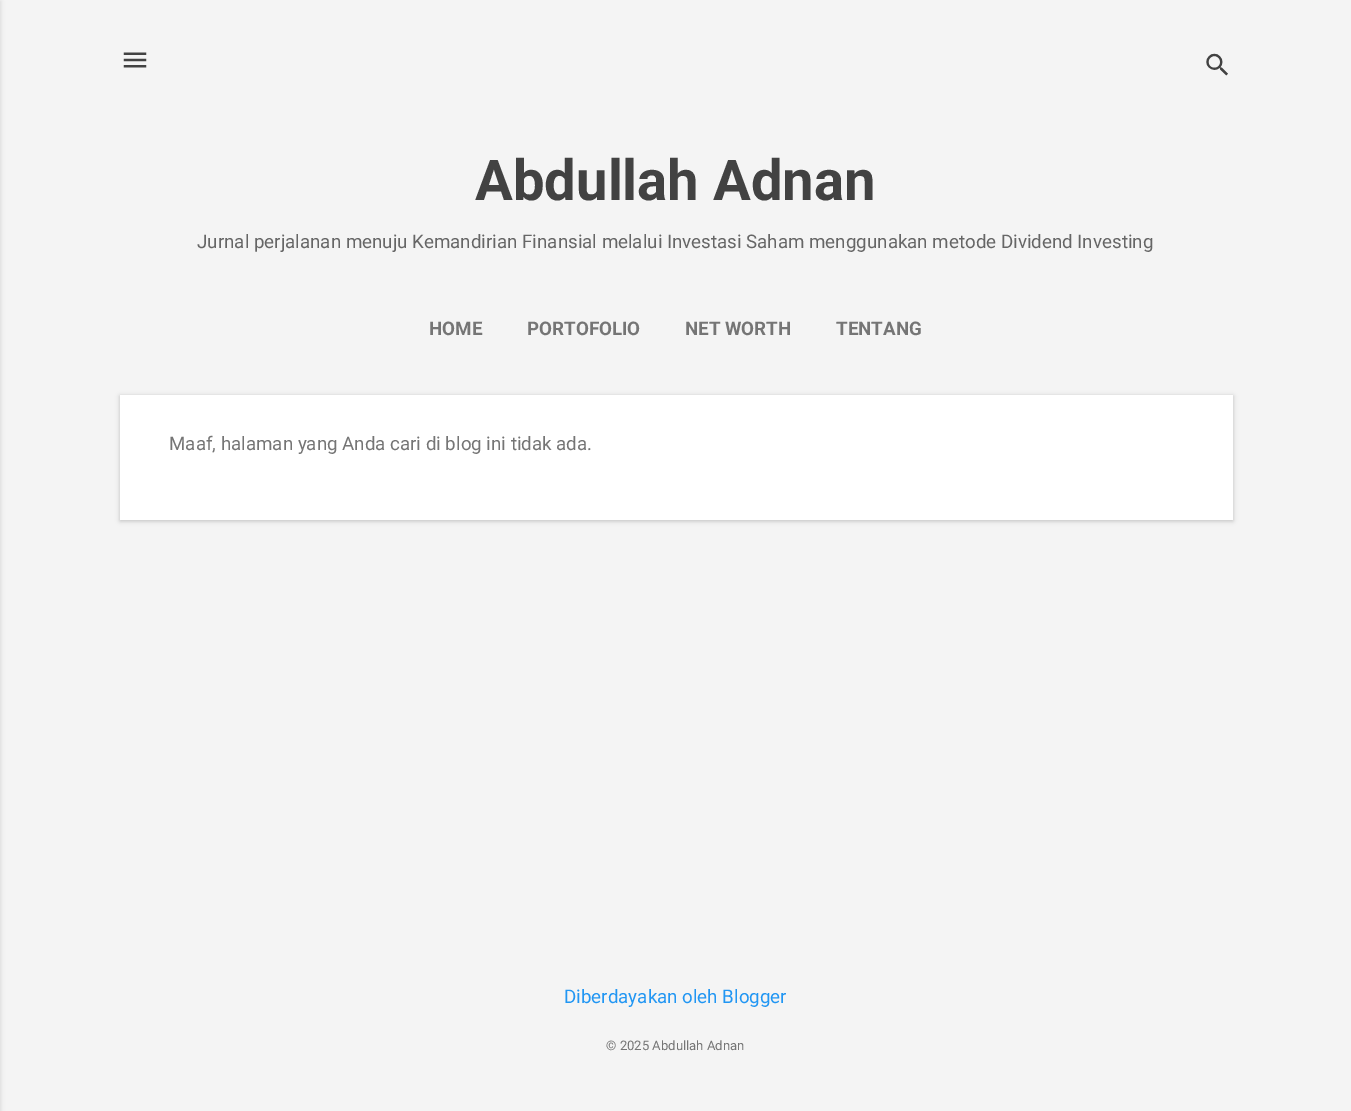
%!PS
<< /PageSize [1351 1111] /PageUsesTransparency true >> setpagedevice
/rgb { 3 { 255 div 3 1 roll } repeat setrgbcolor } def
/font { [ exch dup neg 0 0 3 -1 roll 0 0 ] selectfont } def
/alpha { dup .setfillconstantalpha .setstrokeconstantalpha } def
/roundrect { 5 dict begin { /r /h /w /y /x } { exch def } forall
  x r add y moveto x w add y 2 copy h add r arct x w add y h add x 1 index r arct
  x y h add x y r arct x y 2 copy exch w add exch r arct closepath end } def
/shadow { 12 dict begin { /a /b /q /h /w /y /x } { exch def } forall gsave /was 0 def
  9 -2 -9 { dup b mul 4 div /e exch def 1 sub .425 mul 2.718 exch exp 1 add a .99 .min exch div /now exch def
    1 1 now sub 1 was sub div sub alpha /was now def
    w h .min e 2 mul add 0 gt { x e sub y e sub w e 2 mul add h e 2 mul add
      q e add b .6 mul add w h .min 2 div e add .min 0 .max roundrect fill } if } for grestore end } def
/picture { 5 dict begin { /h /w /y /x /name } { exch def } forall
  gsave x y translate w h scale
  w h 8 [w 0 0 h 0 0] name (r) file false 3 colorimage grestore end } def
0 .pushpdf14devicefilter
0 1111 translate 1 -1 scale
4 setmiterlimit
244 244 244 rgb
0 0 1351 1111 rectfill
0 0 0 rgb
-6 1 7 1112 0 2 0.1 shadow
(img/1.rgb) 123 52 24 16 picture
(img/2.rgb) 1206 53 22 23 picture
60 64 67 rgb
120 396 1113 125 0 2.5 0.3 shadow
255 255 255 rgb
120 395 1113 125 rectfill
/Roboto-Bold 56.25 font
66 66 66 rgb
475 200 moveto (Abdullah Adnan) show
/Roboto-Regular 18.75 font
102 102 102 rgb
197 248 moveto (Jurnal perjalanan menuju Kemandirian Finansial melalui Investasi Saham menggunakan metode Dividend Investing) show
/Roboto-Bold 18.75 font
117 117 117 rgb
[
  [(HOME) 429 335]
  [(PORTOFOLIO) 527 335]
  [(NET WORTH) 685 335]
  [(TENTANG) 836 335]
] { aload pop moveto show } forall
/Roboto-Regular 18.75 font
169 450 moveto (Maaf, halaman yang Anda cari di blog ini tidak ada.) show
33 150 243 rgb
564 1003 moveto (Diberdayakan oleh Blogger) show
/Roboto-Regular 13.1 font
117 117 117 rgb
606 1050 moveto (© 2025 Abdullah Adnan) show
.poppdf14devicefilter showpage
